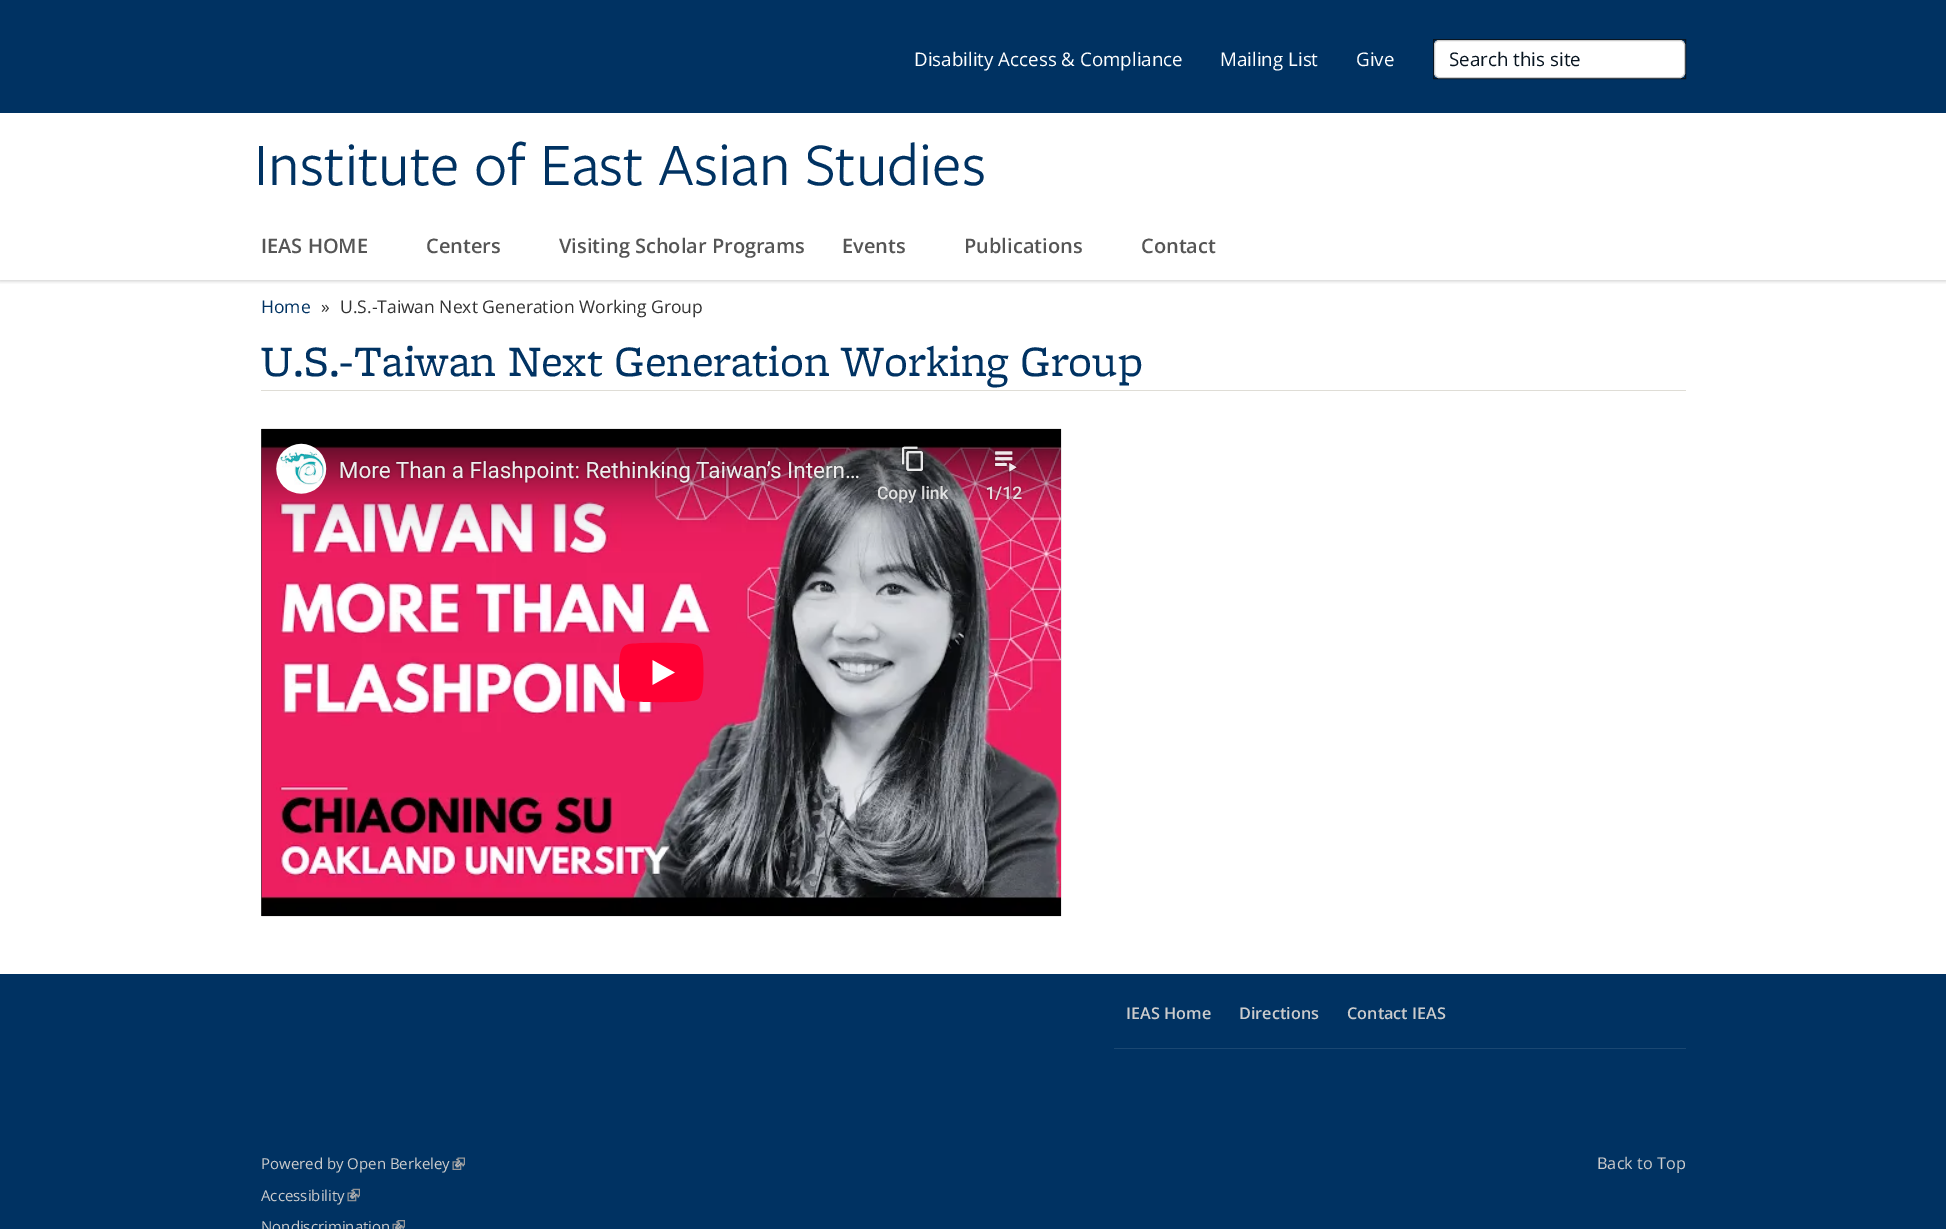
%!PS
<< /PageSize [1946 1229] /PageUsesTransparency true >> setpagedevice
/rgb { 3 { 255 div 3 1 roll } repeat setrgbcolor } def
/font { [ exch dup neg 0 0 3 -1 roll 0 0 ] selectfont } def
/alpha { dup .setfillconstantalpha .setstrokeconstantalpha } def
/roundrect { 5 dict begin { /r /h /w /y /x } { exch def } forall
  x r add y moveto x w add y 2 copy h add r arct x w add y h add x 1 index r arct
  x y h add x y r arct x y 2 copy exch w add exch r arct closepath end } def
/shadow { 12 dict begin { /a /b /q /h /w /y /x } { exch def } forall gsave /was 0 def
  9 -2 -9 { dup b mul 4 div /e exch def 1 sub .425 mul 2.718 exch exp 1 add a .99 .min exch div /now exch def
    1 1 now sub 1 was sub div sub alpha /was now def
    w h .min e 2 mul add 0 gt { x e sub y e sub w e 2 mul add h e 2 mul add
      q e add b .6 mul add w h .min 2 div e add .min 0 .max roundrect fill } if } for grestore end } def
/picture { 5 dict begin { /h /w /y /x /name } { exch def } forall
  gsave x y translate w h scale
  w h 8 [w 0 0 h 0 0] name (r) file false 3 colorimage grestore end } def
0 .pushpdf14devicefilter
0 1229 translate 1 -1 scale
4 setmiterlimit
255 255 255 rgb
0 0 1946 1229 rectfill
gsave
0 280 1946 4 rectclip
0 0 0 rgb
0 1 1946 280 0 2 0.2 shadow
grestore
0 50 98 rgb
0 0 1946 113 rectfill
8 21 33 rgb
1433.5 39.5 252 39 rectstroke
255 255 255 rgb
1434.5 40.5 250 37 4.5 roundrect gsave fill grestore
204 204 204 rgb
stroke
223 221 214 rgb
261 390 1425 1 rectfill
(img/1.rgb) 261 428 801 489 picture
0 50 98 rgb
0 974 1946 255 rectfill
26 71 114 rgb
1114 1048 572 1 rectfill
(img/2.rgb) 452 1157 13 13 picture
(img/3.rgb) 347 1188 13 14 picture
(img/4.rgb) 392 1220 13 9 picture
/OpenSans-Regular 18.75 font
255 255 255 rgb
[
  [(Disability Access & Compliance) 914 66]
  [(Mailing List) 1220 66]
  [(Give) 1356 66]
] { aload pop moveto show } forall
8 21 33 rgb
1449 66 moveto (Search this site) show
/OpenSans-SemiBold 20 font
85 85 85 rgb
[
  [(IEAS HOME) 261 253]
  [(Centers) 426 253]
  [(Visiting Scholar Programs) 559 253]
  [(Events) 842 253]
  [(Publications) 964 253]
  [(Contact) 1141 253]
] { aload pop moveto show } forall
/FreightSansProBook-Regular 62.5 font
0 50 98 rgb
254 185 moveto (Institute of East Asian Studies) show
/OpenSans-Regular 17.5 font
261 313 moveto (Home) show
51 51 51 rgb
321 313 moveto (») show
340 313 moveto (U.S.-Taiwan Next Generation Working Group) show
/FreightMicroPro-Regular 45 font
0 50 98 rgb
261 376 moveto (U.S.-Taiwan Next Generation Working Group) show
/OpenSans-SemiBold 16.25 font
204 204 204 rgb
[
  [(IEAS Home) 1126 1019]
  [(Directions) 1239 1019]
  [(Contact IEAS) 1347 1019]
] { aload pop moveto show } forall
/OpenSans-Regular 15 font
[
  [(Powered by Open Berkeley) 261 1169]
  [(Accessibility) 261 1201]
  [(Nondiscrimination) 261 1232]
] { aload pop moveto show } forall
/OpenSans-Regular 16.25 font
1597 1169 moveto (Back to Top) show
.poppdf14devicefilter showpage
